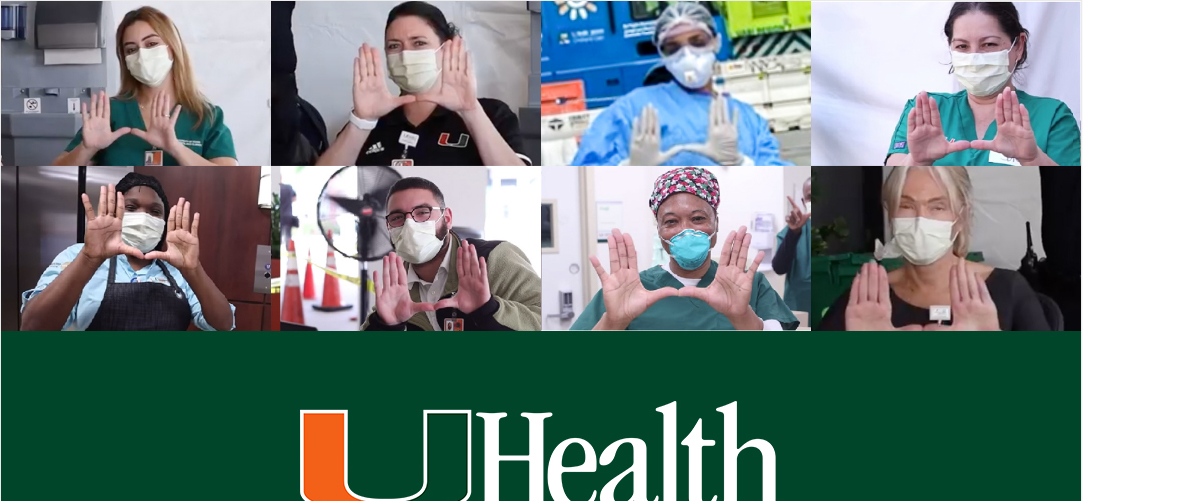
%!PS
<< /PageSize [1198 501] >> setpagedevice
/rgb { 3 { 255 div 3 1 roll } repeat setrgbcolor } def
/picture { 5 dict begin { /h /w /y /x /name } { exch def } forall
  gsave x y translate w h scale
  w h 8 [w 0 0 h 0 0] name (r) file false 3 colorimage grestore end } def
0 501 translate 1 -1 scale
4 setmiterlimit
255 255 255 rgb
0 0 1198 501 rectfill
234 234 234 rgb
0.5 0.5 1081 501 rectstroke
(img/1.rgb) 1 1 1080 500 picture
showpage
